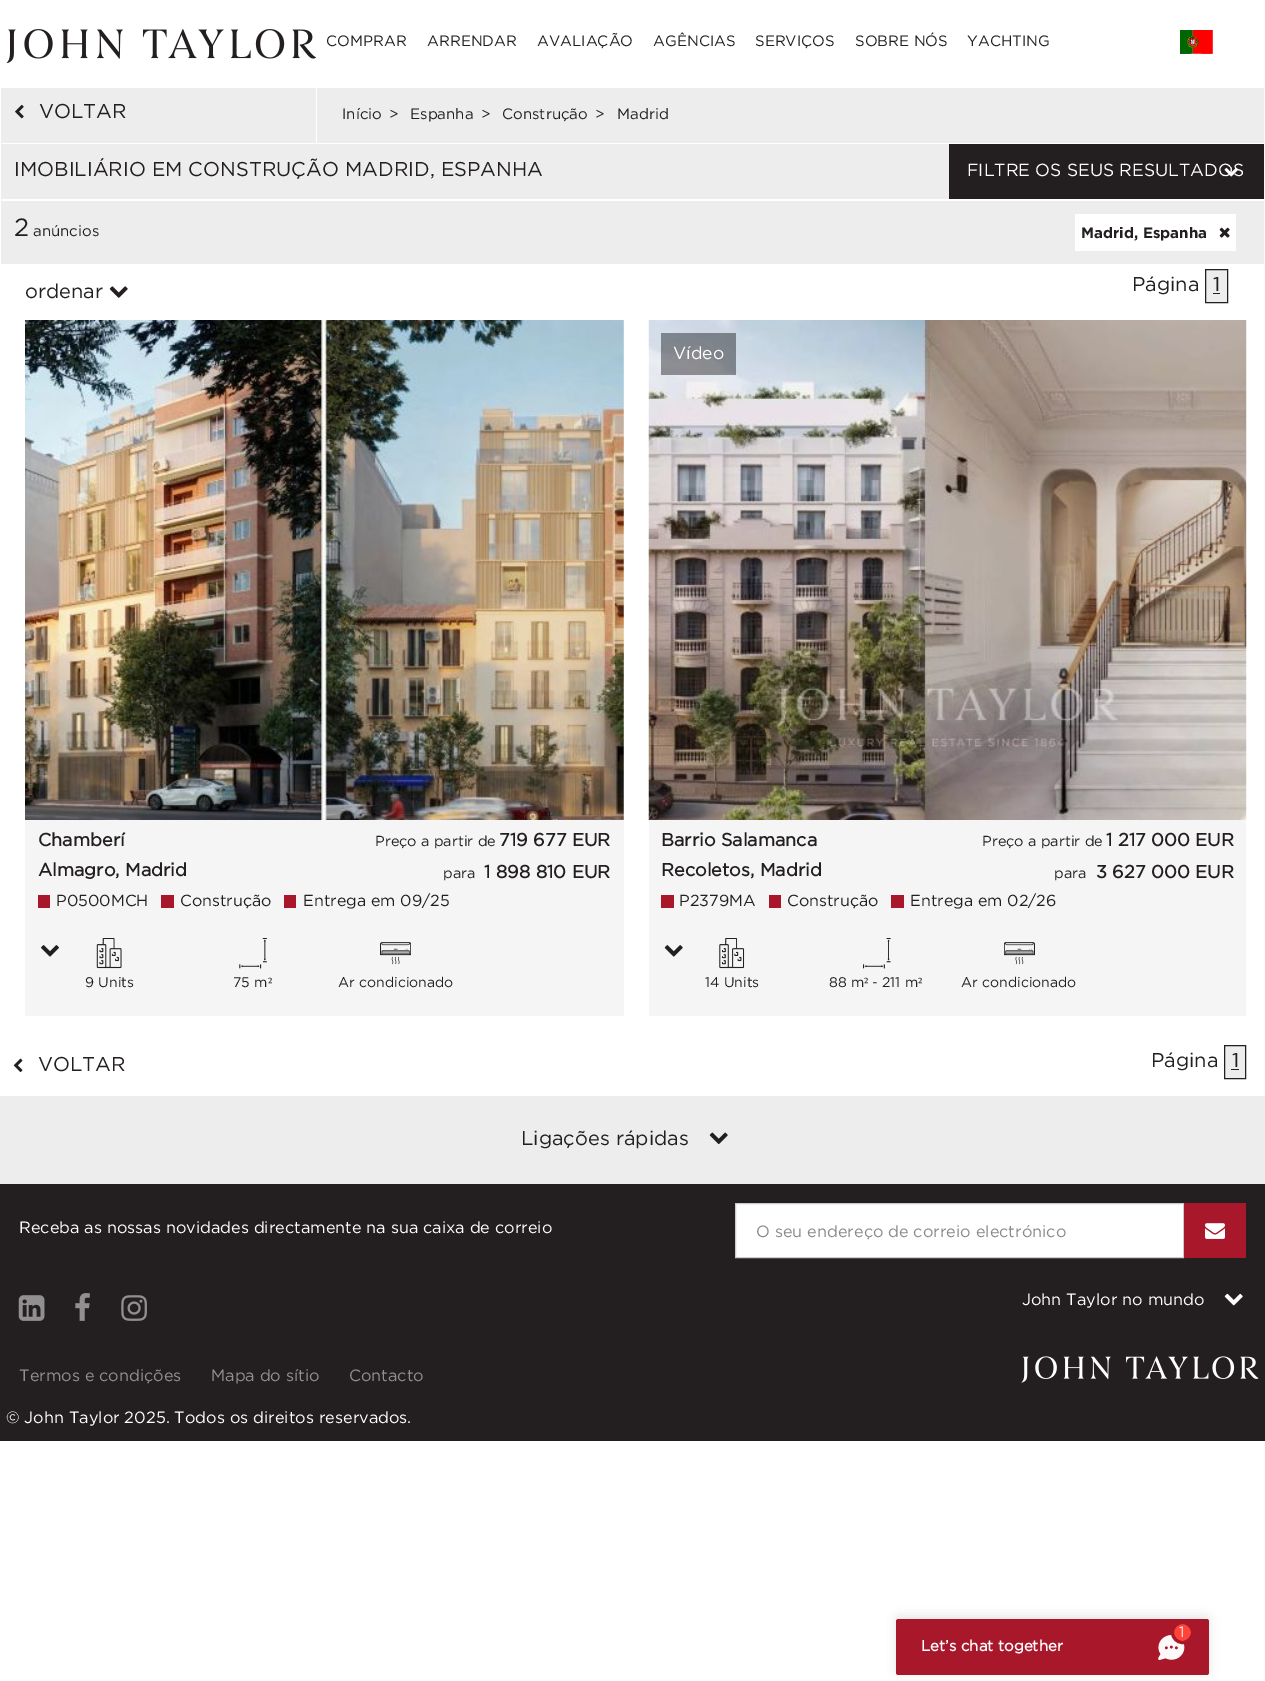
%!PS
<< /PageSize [1265 1681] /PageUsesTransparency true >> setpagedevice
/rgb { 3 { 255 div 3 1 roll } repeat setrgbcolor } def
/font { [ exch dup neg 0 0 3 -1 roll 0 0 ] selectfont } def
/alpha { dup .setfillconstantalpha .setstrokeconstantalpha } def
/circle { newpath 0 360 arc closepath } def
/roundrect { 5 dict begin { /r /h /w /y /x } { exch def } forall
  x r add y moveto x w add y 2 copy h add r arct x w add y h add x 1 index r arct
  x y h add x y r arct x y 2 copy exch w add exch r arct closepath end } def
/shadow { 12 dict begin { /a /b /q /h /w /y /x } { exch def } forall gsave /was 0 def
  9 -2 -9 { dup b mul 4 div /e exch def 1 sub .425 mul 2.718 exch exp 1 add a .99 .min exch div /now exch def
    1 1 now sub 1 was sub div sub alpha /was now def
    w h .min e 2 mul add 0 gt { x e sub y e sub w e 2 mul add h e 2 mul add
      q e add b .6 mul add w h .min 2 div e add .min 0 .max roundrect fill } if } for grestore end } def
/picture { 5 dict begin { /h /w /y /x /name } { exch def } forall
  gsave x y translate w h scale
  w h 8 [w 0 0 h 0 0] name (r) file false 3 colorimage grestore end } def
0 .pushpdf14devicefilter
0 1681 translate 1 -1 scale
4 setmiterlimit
255 255 255 rgb
0 0 1265 1681 rectfill
(img/1.rgb) 6 29 310 34 picture
(img/2.rgb) 1180 30 33 24 picture
[
  [1 88 1263 176 237 237 237]
  [1 143 1263 1 255 255 255]
  [316 88 1 55 255 255 255]
] { aload pop rgb rectfill } forall
(img/3.rgb) 15 104 9 15 picture
[
  [1 199 1263 2 255 255 255]
  [949 144 315 55 35 31 32]
  [1075 214 161 37 255 255 255]
] { aload pop rgb rectfill } forall
(img/5.rgb) 1219 227 11 11 picture
(img/6.rgb) 109 286 19 12 picture
237 237 237 rgb
1205.5 269.5 moveto 1227.5 269.5 lineto 1227.5 302.5 lineto 1205.5 302.5 lineto closepath gsave fill grestore
35 31 32 rgb
stroke
1213 293 7 1 rectfill
245 245 245 rgb
25 320 599 696 rectfill
(img/7.rgb) 25 320 599 500 picture
[
  [38 895 12 13 168 23 42]
  [161 895 13 13 168 23 42]
  [284 895 12 13 168 23 42]
] { aload pop rgb rectfill } forall
(img/8.rgb) 41 945 18 12 picture
(img/9.rgb) 96 938 26 31 picture
(img/10.rgb) 239 938 28 31 picture
(img/11.rgb) 380 942 31 23 picture
245 245 245 rgb
649 820 597 196 rectfill
(img/12.rgb) 648 320 599 500 picture
0.4 alpha
[
  [661 333 75 42 0 0 0]
] { aload pop rgb rectfill } forall
1 alpha
[
  [661 895 13 13 168 23 42]
  [769 895 12 13 168 23 42]
  [891 895 13 13 168 23 42]
] { aload pop rgb rectfill } forall
(img/13.rgb) 664 945 19 12 picture
(img/14.rgb) 719 938 26 31 picture
(img/15.rgb) 863 938 28 31 picture
(img/16.rgb) 1004 942 31 23 picture
(img/17.rgb) 13 1058 10 15 picture
237 237 237 rgb
1224.5 1045.5 moveto 1245.5 1045.5 lineto 1245.5 1078.5 lineto 1224.5 1078.5 lineto closepath gsave fill grestore
35 31 32 rgb
stroke
1231 1069 8 1 rectfill
237 237 237 rgb
0 1096 1265 88 rectfill
(img/18.rgb) 709 1132 19 13 picture
35 31 32 rgb
0 1184 1265 257 rectfill
255 255 255 rgb
735.5 1203.5 moveto 1183.5 1203.5 lineto 1183.5 1257.5 lineto 735.5 1257.5 lineto closepath gsave fill grestore
204 204 204 rgb
stroke
168 23 42 rgb
1184 1203 62 55 rectfill
(img/19.rgb) 1205 1223 20 16 picture
(img/20.rgb) 18 1295 27 26 picture
(img/21.rgb) 75 1293 15 28 picture
(img/22.rgb) 121 1295 26 26 picture
(img/23.rgb) 1224 1293 19 13 picture
(img/24.rgb) 1021 1356 238 27 picture
0 0 0 rgb
896 1616 313 57 2.5 5 0.1 shadow
168 23 42 rgb
896 1619 313 56 2.5 roundrect fill
(img/25.rgb) 1158 1635 27 25 picture
255 68 58 rgb
1182.5 1632.5 10 circle gsave fill grestore
168 23 42 rgb
3 setlinewidth
stroke
/Gotham-Regular 15 font
35 31 32 rgb
[
  [(COMPRAR) 326 46]
  [(ARRENDAR) 427 46]
  [(AVALIAÇÃO) 537 46]
  [(AGÊNCIAS) 653 46]
  [(SERVIÇOS) 755 46]
  [(SOBRE NÓS) 855 46]
  [(YACHTING) 967 46]
] { aload pop moveto show } forall
/Gotham-Regular 20 font
39 118 moveto (VOLTAR) show
/Gotham-Regular 15 font
[
  [(Início) 342 119]
  [(>) 389 119]
  [(Espanha) 410 119]
  [(>) 481 119]
  [(Construção) 502 119]
  [(>) 595 119]
  [(Madrid) 617 119]
] { aload pop moveto show } forall
/Gotham-Regular 20 font
14 176 moveto (IMOBILIÁRIO EM CONSTRUÇÃO MADRID, ESPANHA) show
/Gotham-Regular 17.5 font
255 255 255 rgb
967 176 moveto (FILTRE OS SEUS RESULTADOS) show
(img/4.rgb) 1224 167 14 10 picture
/Gotham-Regular 25 font
35 31 32 rgb
14 236 moveto (2) show
/Gotham-Regular 15 font
33 236 moveto (anúncios) show
/Gotham-Bold 15 font
1081 238 moveto (Madrid, Espanha) show
/Gotham-Regular 20 font
[
  [(ordenar) 25 298]
  [(Página) 1132 291]
  [(1) 1213 291]
] { aload pop moveto show } forall
/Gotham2-Bold 18 font
38 846 moveto (Chamberí) show
38 876 moveto (Almagro, Madrid) show
/Gotham-Regular 14.5 font
375 846 moveto (Preço a partir de) show
/Gotham2-Bold 18 font
499 846 moveto (719 677 EUR) show
/Gotham-Regular 14.5 font
443 878 moveto (para) show
/Gotham2-Bold 18 font
484 878 moveto (1 898 810 EUR) show
/Gotham-Regular 16 font
[
  [(P0500MCH) 56 906]
  [(Construção) 180 906]
  [(Entrega em 09/25) 303 906]
] { aload pop moveto show } forall
/Gotham-Regular 14 font
85 987 moveto (9 Units) show
233 987 moveto (75 m) show
/LiberationSerif-Regular 14 font
268 987 moveto (²) show
/Gotham-Regular 14 font
338 987 moveto (Ar condicionado) show
/Gotham-Regular 17.5 font
255 255 255 rgb
673 359 moveto (Vídeo) show
/Gotham2-Bold 18 font
35 31 32 rgb
661 846 moveto (Barrio Salamanca) show
661 876 moveto (Recoletos, Madrid) show
/Gotham-Regular 14.5 font
982 846 moveto (Preço a partir de) show
/Gotham2-Bold 18 font
1106 846 moveto (1 217 000 EUR) show
/Gotham-Regular 14.5 font
1054 878 moveto (para) show
/Gotham2-Bold 18 font
1096 878 moveto (3 627 000 EUR) show
/Gotham-Regular 16 font
[
  [(P2379MA) 679 906]
  [(Construção) 787 906]
  [(Entrega em 02/26) 910 906]
] { aload pop moveto show } forall
/Gotham-Regular 14 font
705 987 moveto (14 Units) show
829 987 moveto (88 m) show
/LiberationSerif-Regular 14 font
864 987 moveto (²) show
/Gotham-Regular 14 font
872 987 moveto (- 211 m) show
/LiberationSerif-Regular 14 font
918 987 moveto (²) show
/Gotham-Regular 14 font
961 987 moveto (Ar condicionado) show
/Gotham-Regular 20 font
[
  [(VOLTAR) 38 1071]
  [(Página) 1151 1067]
  [(1) 1232 1067]
  [(Ligações rápidas) 521 1145]
] { aload pop moveto show } forall
/Gotham-Regular 16.25 font
255 255 255 rgb
19 1233 moveto (Receba as nossas novidades directamente na sua caixa de correio) show
137 137 137 rgb
756 1237 moveto (O seu endereço de correio electrónico) show
255 255 255 rgb
1022 1305 moveto (John Taylor no mundo) show
145 143 144 rgb
[
  [(Termos e condições) 19 1381]
  [(Mapa do sítio) 211 1381]
  [(Contacto) 349 1381]
] { aload pop moveto show } forall
255 255 255 rgb
6 1423 moveto (© John Taylor 2025. Todos os direitos reservados.) show
/Gotham-Regular 15 font
1179 1637 moveto (1) show
/Gotham2-Bold 15 font
921 1651 moveto (Let’s chat together) show
.poppdf14devicefilter showpage
